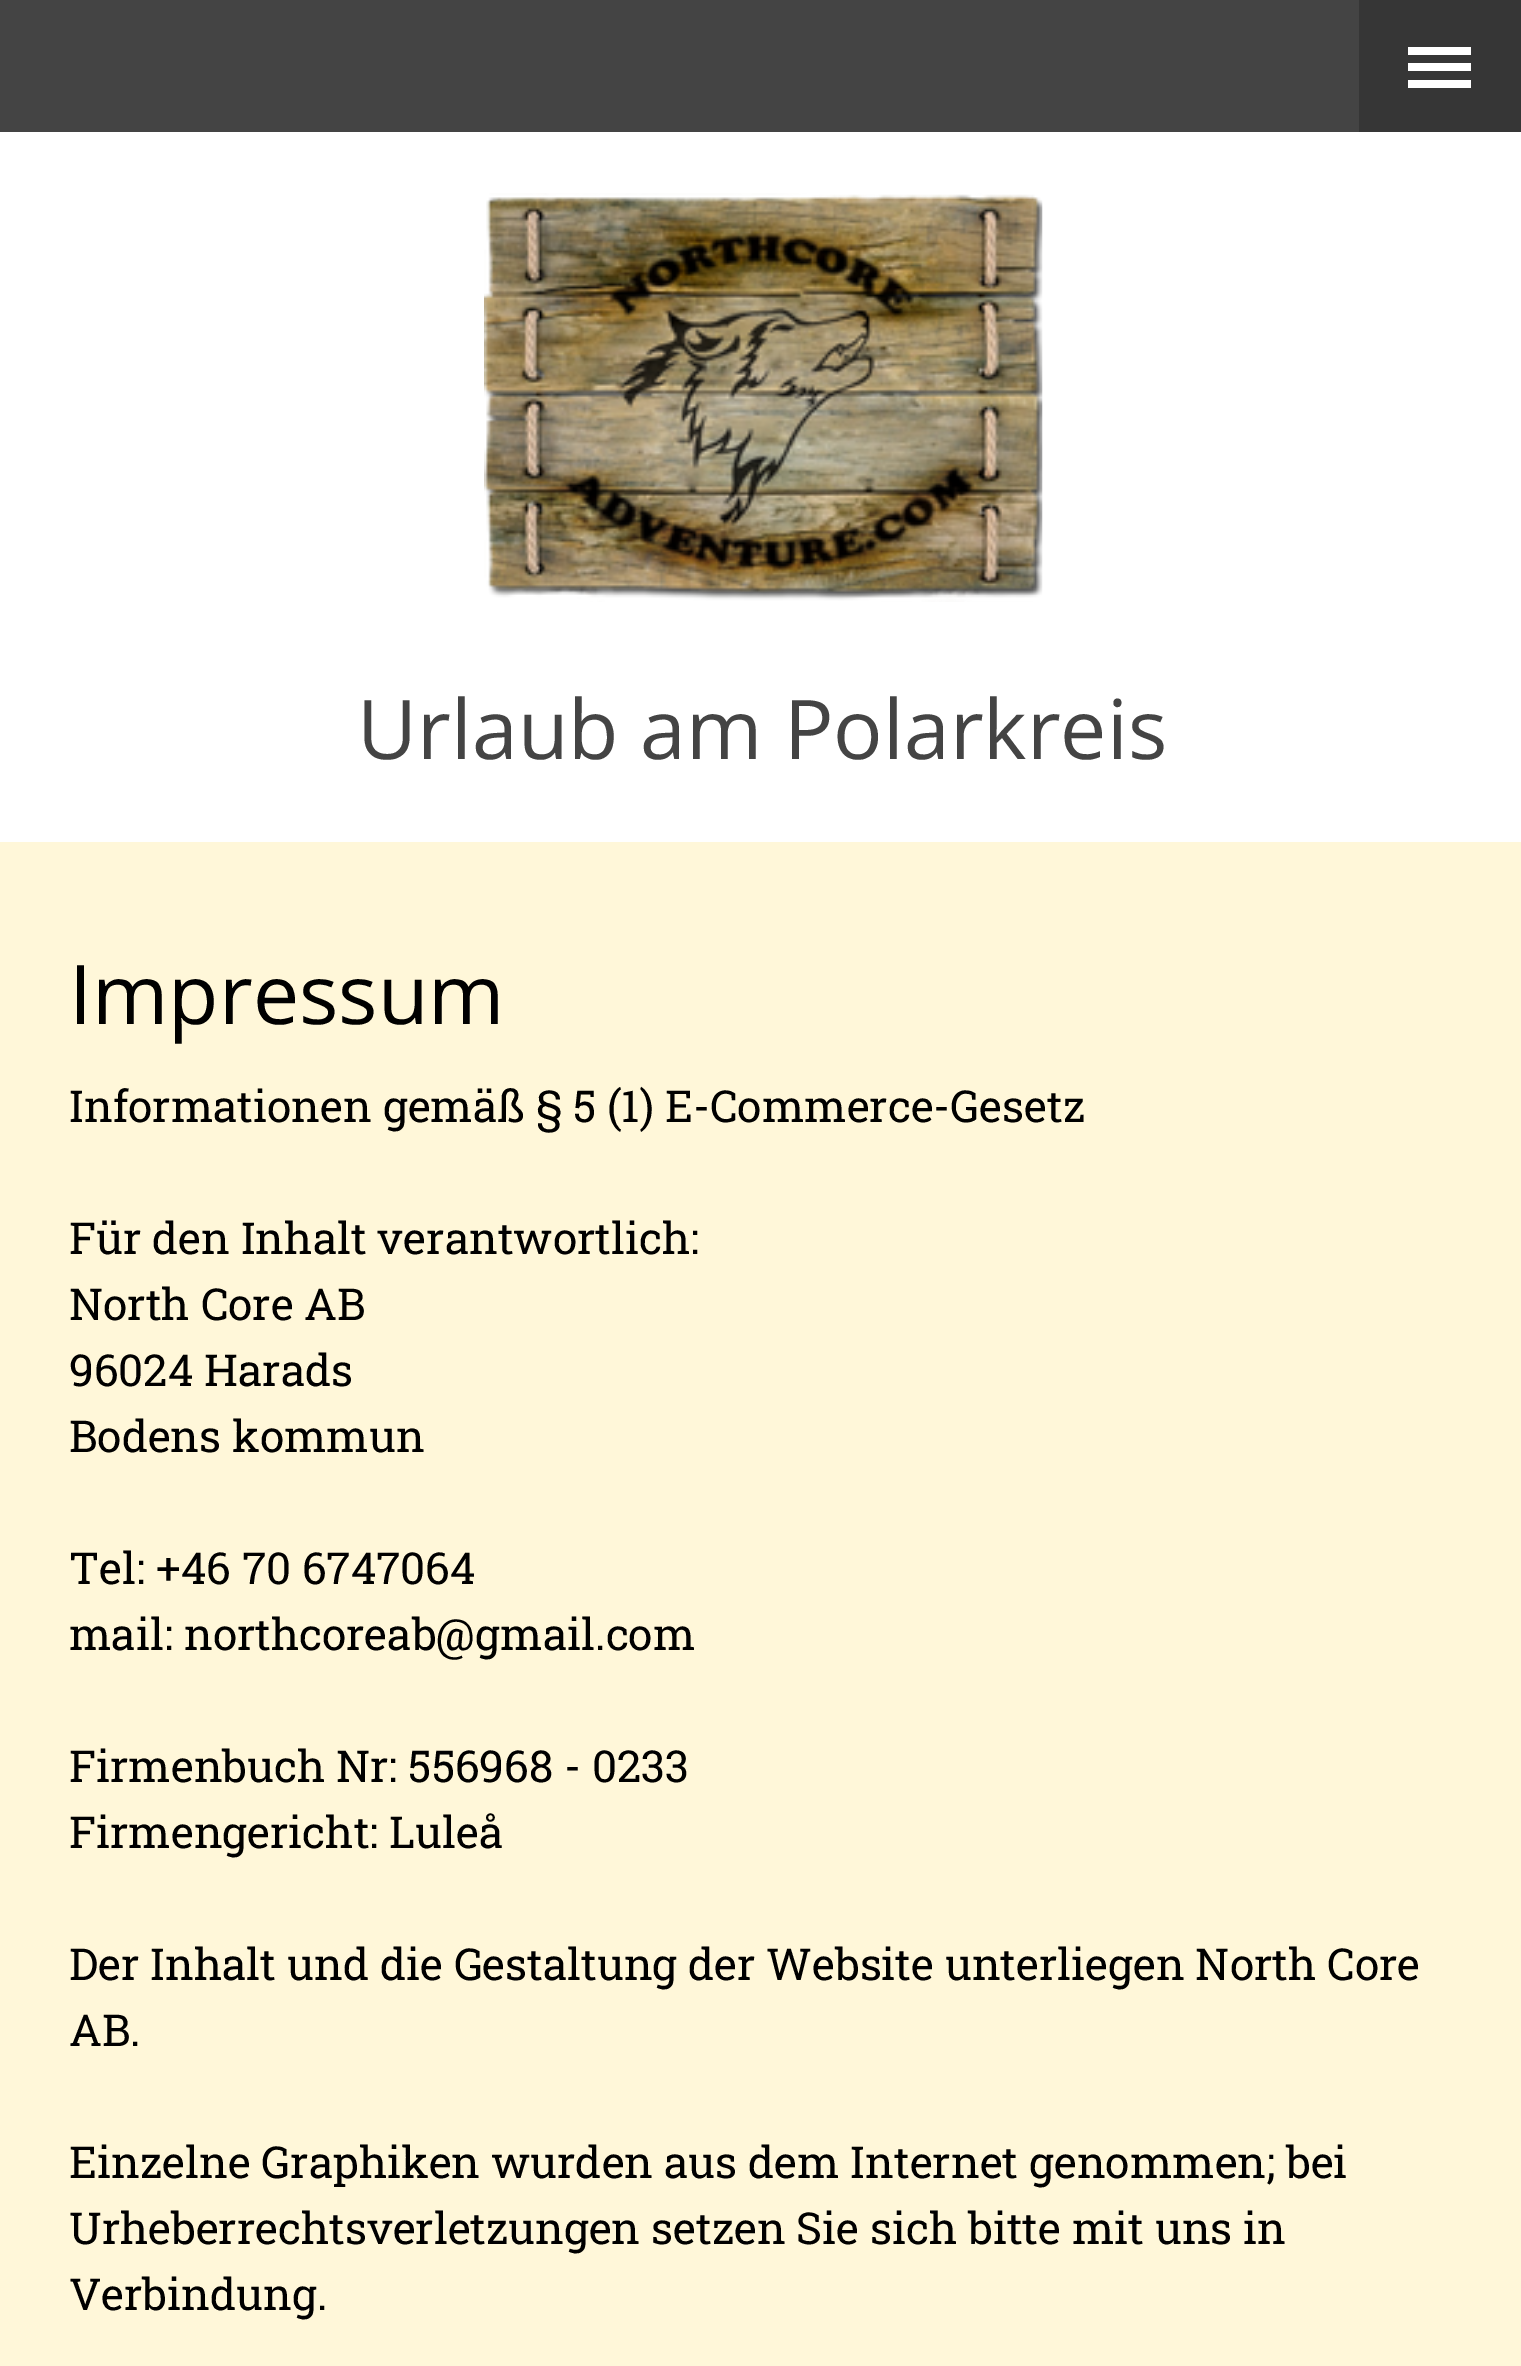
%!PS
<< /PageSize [1521 2366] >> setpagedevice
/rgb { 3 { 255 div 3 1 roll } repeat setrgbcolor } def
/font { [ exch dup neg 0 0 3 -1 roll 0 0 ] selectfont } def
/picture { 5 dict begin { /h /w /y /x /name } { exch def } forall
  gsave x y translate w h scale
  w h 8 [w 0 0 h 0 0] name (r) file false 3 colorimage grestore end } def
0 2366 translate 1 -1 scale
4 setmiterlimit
255 255 255 rgb
0 0 1521 2366 rectfill
[
  [1359 0 162 132 54 54 54]
  [1408 63 63 8 255 255 255]
  [1408 47 63 8 255 255 255]
  [1408 80 63 8 255 255 255]
  [0 0 1359 132 68 68 68]
] { aload pop rgb rectfill } forall
(img/1.rgb) 484 193 559 409 picture
255 247 217 rgb
0 842 1521 1524 rectfill
/OpenSans-Regular 82.5 font
68 68 68 rgb
357 759 moveto (Urlaub am Polarkreis) show
0 0 0 rgb
69 1024 moveto (Impressum) show
/RobotoSlab-Regular 44 font
[
  [(Informationen gemäß § 5 \(1\) E-Commerce-Gesetz) 69 1122]
  [(Für den Inhalt verantwortlich:) 69 1254]
  [(North Core AB) 69 1320]
  [(96024 Harads) 69 1386]
  [(Bodens kommun) 69 1452]
  [(Tel: +46 70 6747064) 69 1584]
  [(mail: northcoreab@gmail.com) 69 1650]
  [(Firmenbuch Nr: 556968 - 0233) 69 1782]
  [(Firmengericht: Luleå) 69 1848]
  [(Der Inhalt und die Gestaltung der Website unterliegen North Core) 69 1980]
  [(AB.) 69 2046]
  [(Einzelne Graphiken wurden aus dem Internet genommen; bei) 69 2178]
  [(Urheberrechtsverletzungen setzen Sie sich bitte mit uns in) 69 2244]
  [(Verbindung.) 69 2310]
] { aload pop moveto show } forall
showpage
